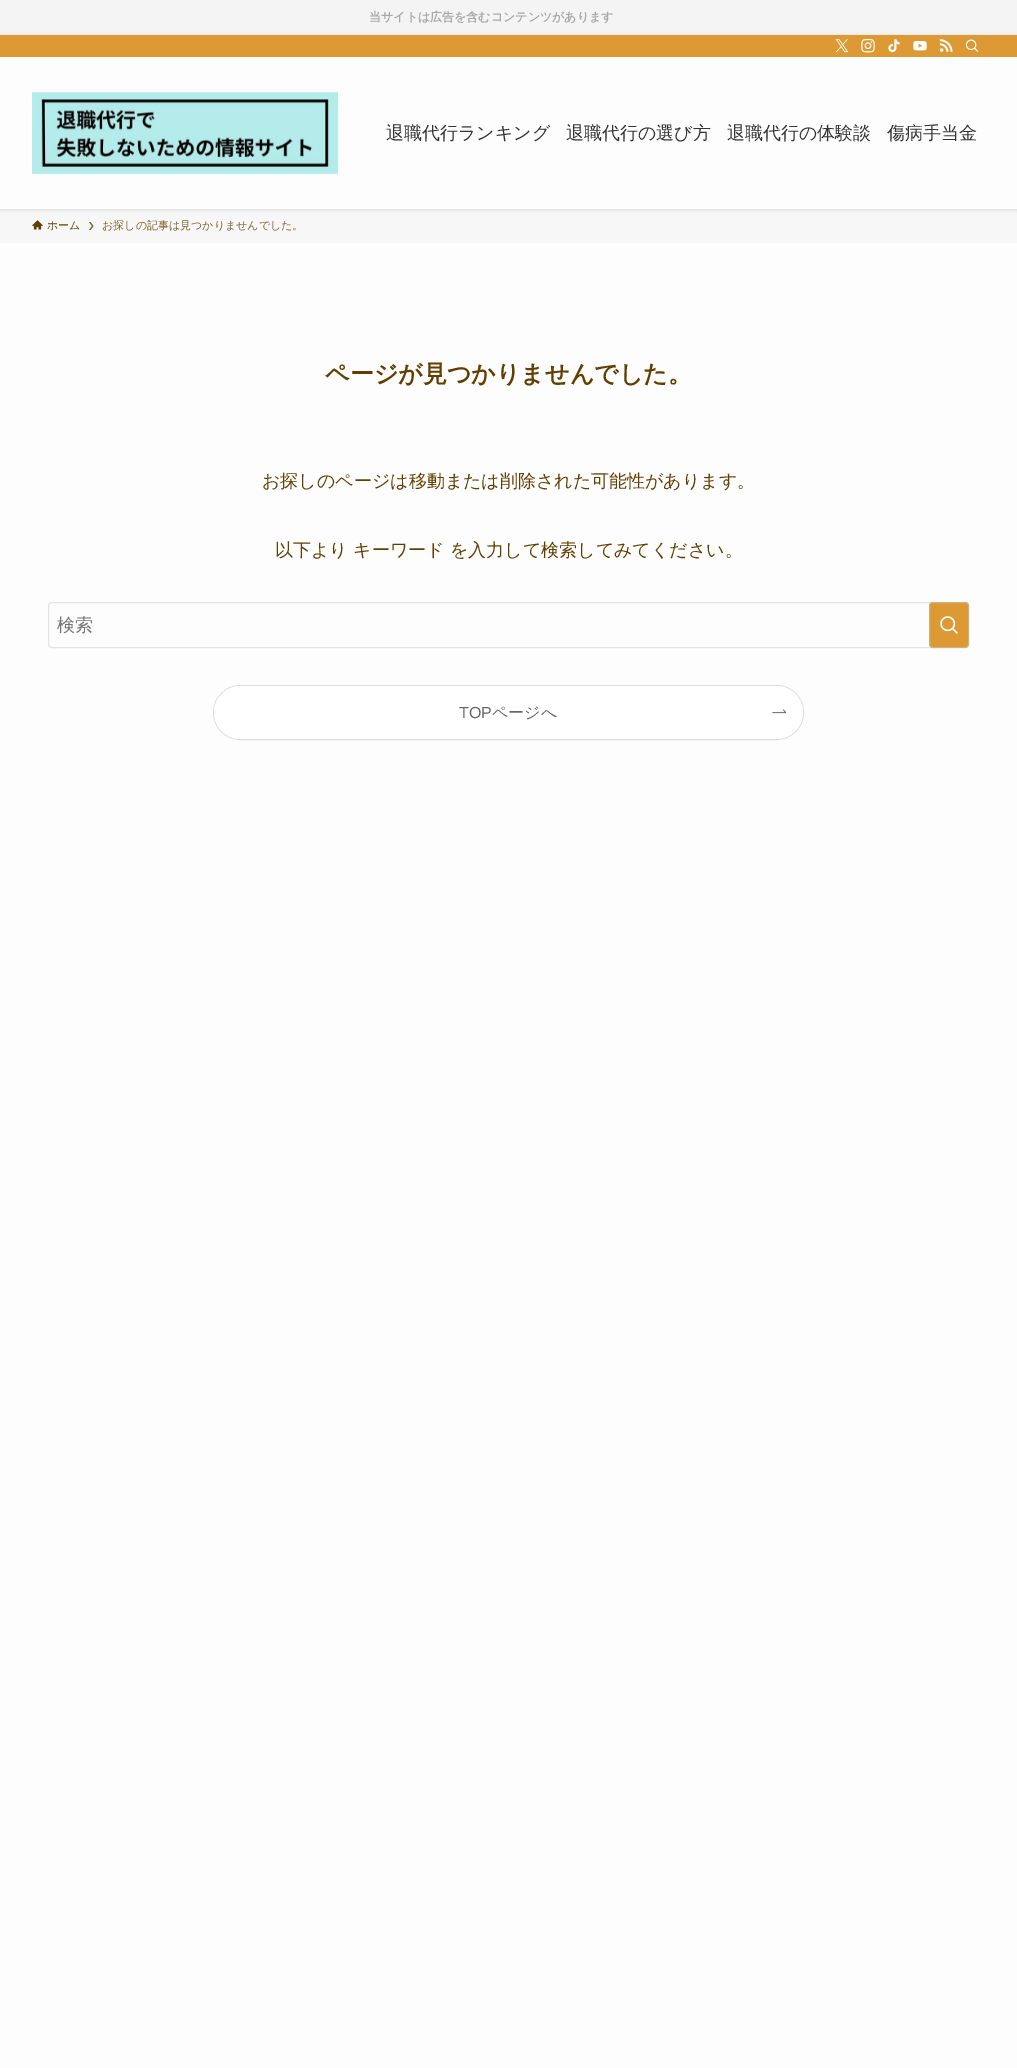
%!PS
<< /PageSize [1017 2068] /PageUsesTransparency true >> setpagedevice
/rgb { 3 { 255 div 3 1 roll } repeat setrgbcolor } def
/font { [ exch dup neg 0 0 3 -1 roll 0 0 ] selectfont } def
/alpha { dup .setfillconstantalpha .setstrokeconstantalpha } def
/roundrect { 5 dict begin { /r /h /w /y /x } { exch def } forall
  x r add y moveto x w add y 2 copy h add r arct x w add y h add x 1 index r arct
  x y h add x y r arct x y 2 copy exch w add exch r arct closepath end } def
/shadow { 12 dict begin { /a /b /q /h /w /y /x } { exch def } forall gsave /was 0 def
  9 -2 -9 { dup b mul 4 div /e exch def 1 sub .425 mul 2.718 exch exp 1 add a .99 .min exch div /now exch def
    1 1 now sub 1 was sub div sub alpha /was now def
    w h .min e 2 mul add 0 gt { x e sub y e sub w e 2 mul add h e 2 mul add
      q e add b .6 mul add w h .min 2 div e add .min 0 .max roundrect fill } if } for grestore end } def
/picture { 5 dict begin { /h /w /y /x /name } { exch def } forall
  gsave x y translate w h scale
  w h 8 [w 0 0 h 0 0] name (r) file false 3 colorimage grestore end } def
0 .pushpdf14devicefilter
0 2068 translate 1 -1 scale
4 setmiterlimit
253 253 253 rgb
0 0 1017 2068 rectfill
244 244 244 rgb
0 0 1017 35 rectfill
247 247 247 rgb
0 209 1017 34 rectfill
gsave
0 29 moveto 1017 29 lineto 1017 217 lineto 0 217 lineto closepath 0 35 moveto 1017 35 lineto 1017 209 lineto 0 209 lineto closepath eoclip newpath
0 0 0 rgb
0 36 1017 174 0 2 0.12 shadow
grestore
221 153 51 rgb
0 35 1017 22 rectfill
(img/1.rgb) 835 39 14 14 picture
(img/2.rgb) 861 39 14 14 picture
(img/3.rgb) 888 39 12 14 picture
(img/4.rgb) 913 41 14 10 picture
(img/5.rgb) 939 39 14 13 picture
(img/6.rgb) 965 39 14 13 picture
(img/7.rgb) 32 91 306 84 picture
(img/8.rgb) 32 220 11 10 picture
129 99 49 rgb
90.5 222 moveto 89 222 lineto 92 226 lineto 89 230 lineto 90.5 230 lineto 93.5 226 lineto closepath fill
227 227 227 rgb
48.5 602.5 920 45 3.5 roundrect stroke
221 153 51 rgb
929 602 40 46 4 roundrect fill
0.5 alpha
199 199 199 rgb
929.5 602.5 39 45 3.5 roundrect stroke
1 alpha
(img/9.rgb) 940 616 18 18 picture
220 220 220 rgb
213.5 685.5 590 54 27 roundrect stroke
255 255 255 rgb
214 686 589 53 26.5 roundrect fill
(img/10.rgb) 772 709 15 5 picture
/WenQuanYiZenHei-Bold 12 font
168 168 168 rgb
369 21 moveto (当サイトは広告を含むコンテンツがあります) show
/WenQuanYiZenHei-Medium 18 font
51 51 51 rgb
[
  [(退職代行ランキング) 386 139]
  [(退職代行の選び方) 566 139]
  [(退職代行の体験談) 727 139]
  [(傷病手当金) 887 139]
] { aload pop moveto show } forall
/WenQuanYiZenHei-Medium 11 font
99 62 0 rgb
47 229 moveto (ホーム) show
129 99 49 rgb
102 229 moveto (お探しの記事は見つかりませんでした。) show
/WenQuanYiZenHei-Bold 24 font
99 62 0 rgb
325 382 moveto (ページが見つかりませんでした。) show
/WenQuanYiZenHei-Medium 18 font
262 487 moveto (お探しのページは移動または削除された可能性があります。) show
275 556 moveto (以下より キーワード を入力して検索してみてください。) show
117 117 117 rgb
57 631 moveto (検索) show
/LiberationSans-Regular 16 font
102 102 102 rgb
459 718 moveto (TOP) show
/WenQuanYiZenHei-Medium 16 font
492 718 moveto (ページへ) show
.poppdf14devicefilter showpage
